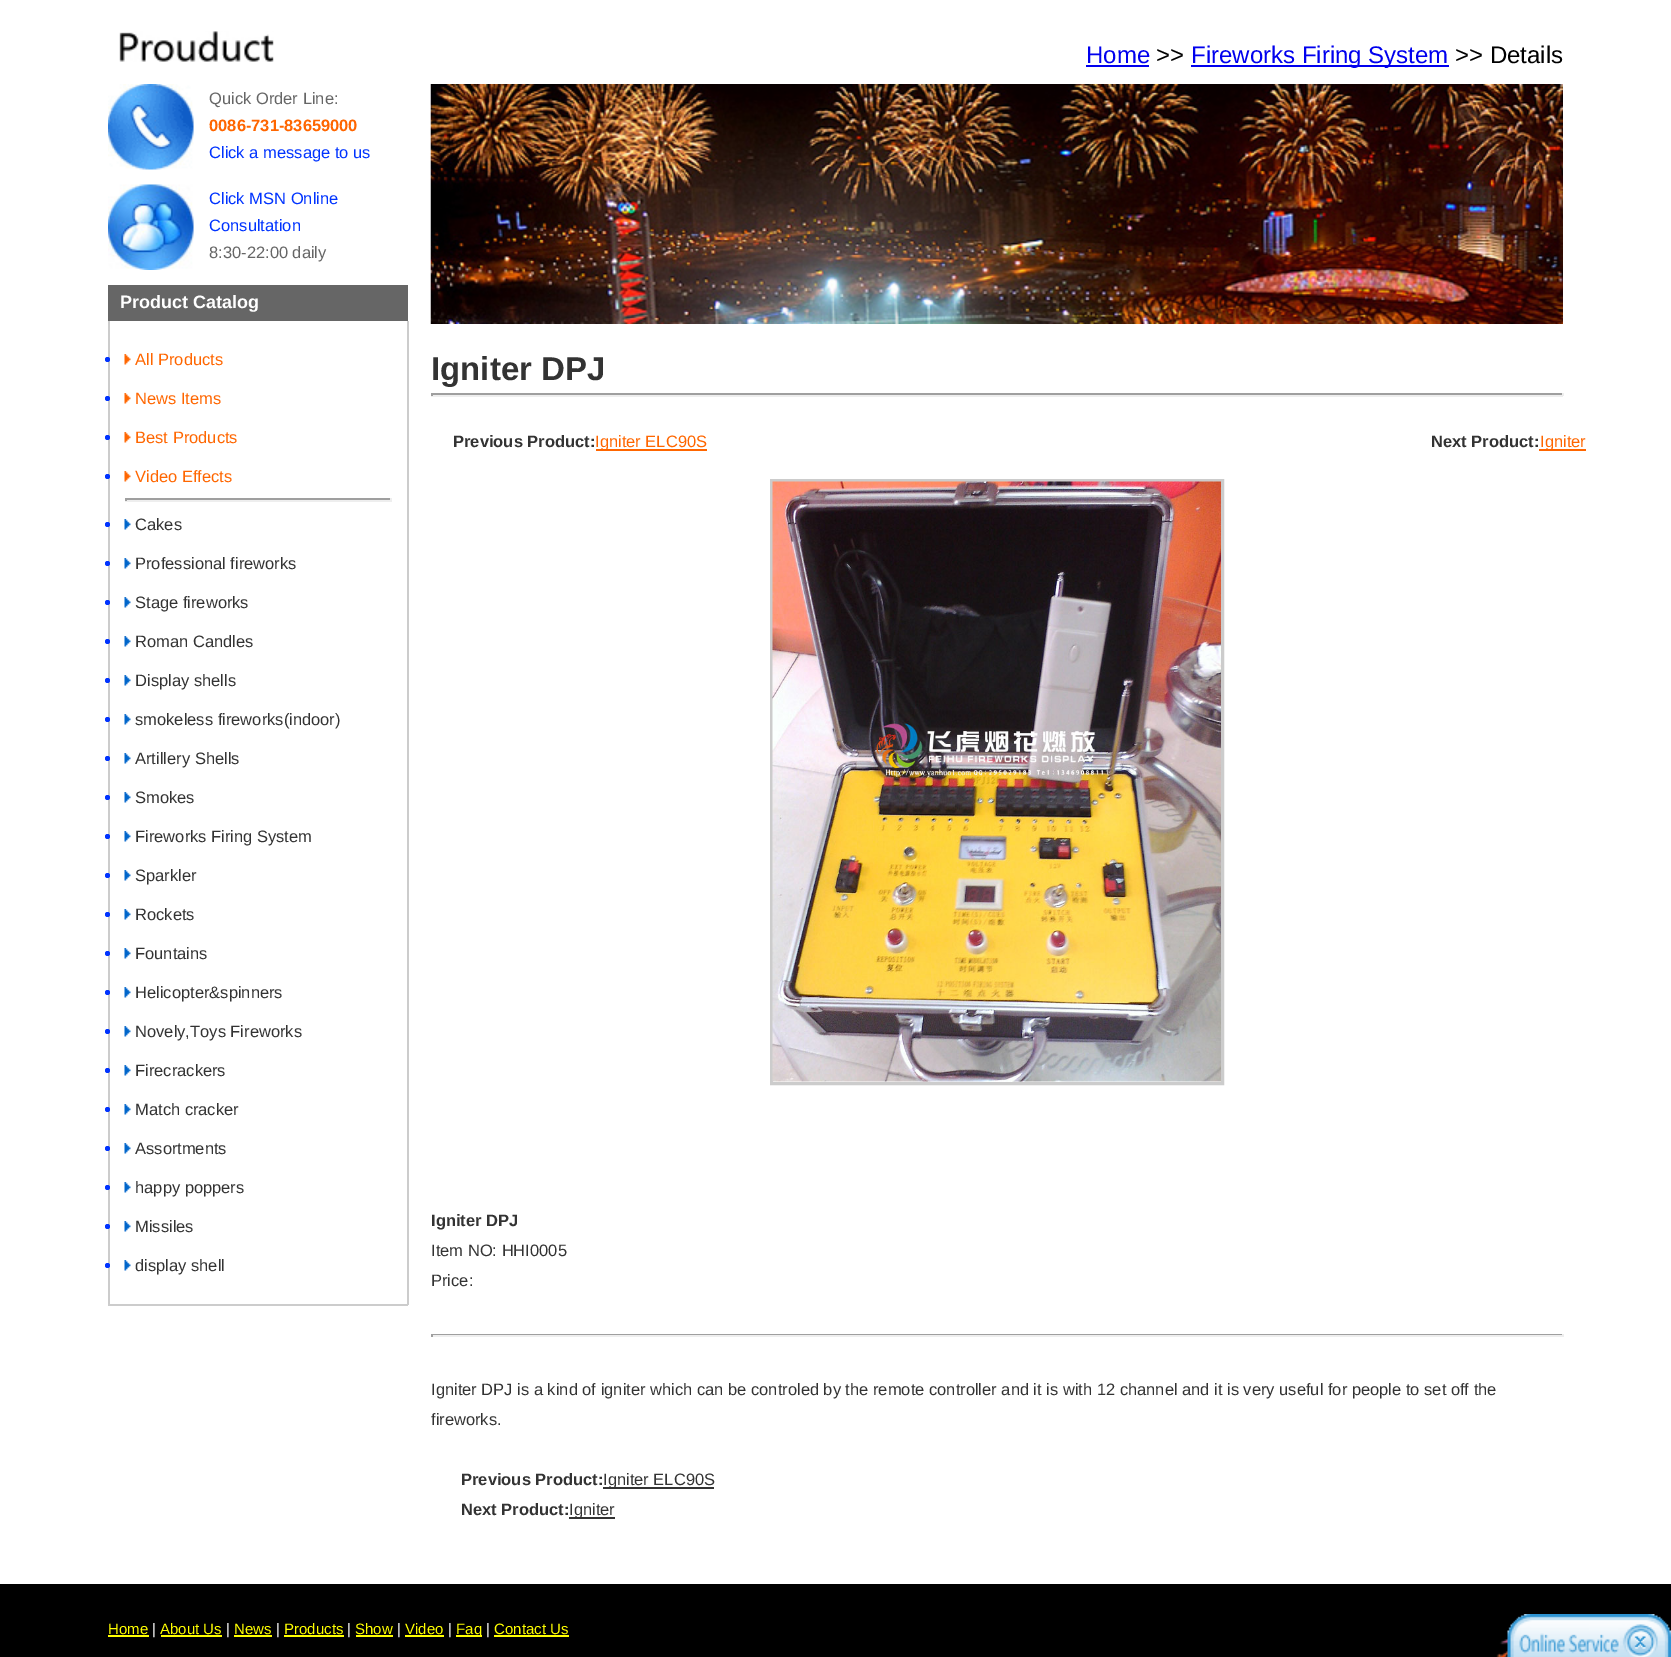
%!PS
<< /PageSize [1671 1657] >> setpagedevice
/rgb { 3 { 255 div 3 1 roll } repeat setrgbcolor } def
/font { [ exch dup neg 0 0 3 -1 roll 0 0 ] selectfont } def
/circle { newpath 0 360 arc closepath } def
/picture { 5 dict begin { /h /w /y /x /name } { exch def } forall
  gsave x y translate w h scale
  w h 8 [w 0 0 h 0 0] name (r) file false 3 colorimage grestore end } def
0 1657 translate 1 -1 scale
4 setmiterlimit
255 255 255 rgb
0 0 1671 1657 rectfill
(img/1.rgb) 119 31 155 31 picture
0 0 238 rgb
1086 65 63 2 rectfill
1191 65 258 2 rectfill
(img/2.rgb) 108 84 86 86 picture
(img/3.rgb) 108 184 86 86 picture
[
  [108 285 300 36 102 102 102]
  [407 321 2 984 204 204 204]
  [108 1304 300 2 204 204 204]
  [108 321 2 984 204 204 204]
] { aload pop rgb rectfill } forall
0 51 255 rgb
107.5 359.5 2.5 circle fill
(img/4.rgb) 124 354 7 11 picture
107.5 398.5 2.5 circle fill
(img/4.rgb) 124 393 7 11 picture
107.5 437.5 2.5 circle fill
(img/4.rgb) 124 432 7 11 picture
107.5 476.5 2.5 circle fill
(img/4.rgb) 124 471 7 11 picture
[
  [125 498 267 2 159 159 159]
  [390 498 2 3 238 238 238]
  [125 500 267 2 238 238 238]
  [125 498 2 3 159 159 159]
] { aload pop rgb rectfill } forall
0 51 255 rgb
107.5 524.5 2.5 circle fill
(img/5.rgb) 124 519 7 11 picture
107.5 563.5 2.5 circle fill
(img/5.rgb) 124 558 7 11 picture
107.5 602.5 2.5 circle fill
(img/5.rgb) 124 597 7 11 picture
107.5 641.5 2.5 circle fill
(img/5.rgb) 124 636 7 11 picture
107.5 680.5 2.5 circle fill
(img/5.rgb) 124 675 7 11 picture
107.5 719.5 2.5 circle fill
(img/5.rgb) 124 714 7 11 picture
107.5 758.5 2.5 circle fill
(img/5.rgb) 124 753 7 11 picture
107.5 797.5 2.5 circle fill
(img/5.rgb) 124 792 7 11 picture
107.5 836.5 2.5 circle fill
(img/5.rgb) 124 831 7 11 picture
107.5 875.5 2.5 circle fill
(img/5.rgb) 124 870 7 11 picture
107.5 914.5 2.5 circle fill
(img/5.rgb) 124 909 7 11 picture
107.5 953.5 2.5 circle fill
(img/5.rgb) 124 948 7 11 picture
107.5 992.5 2.5 circle fill
(img/5.rgb) 124 987 7 11 picture
107.5 1031.5 2.5 circle fill
(img/5.rgb) 124 1026 7 11 picture
107.5 1070.5 2.5 circle fill
(img/5.rgb) 124 1065 7 11 picture
107.5 1109.5 2.5 circle fill
(img/5.rgb) 124 1104 7 11 picture
107.5 1148.5 2.5 circle fill
(img/5.rgb) 124 1143 7 11 picture
107.5 1187.5 2.5 circle fill
(img/5.rgb) 124 1182 7 11 picture
107.5 1226.5 2.5 circle fill
(img/5.rgb) 124 1221 7 11 picture
107.5 1265.5 2.5 circle fill
(img/5.rgb) 124 1260 7 11 picture
(img/6.rgb) 430 84 1133 240 picture
[
  [431 393 1132 2 159 159 159]
  [1562 393 2 3 238 238 238]
  [431 395 1132 2 238 238 238]
  [431 393 2 3 159 159 159]
  [596 449 111 2 255 102 0]
  [1539 449 47 2 255 102 0]
] { aload pop rgb rectfill } forall
204 204 204 rgb
3 setlinewidth
771.5 480.5 451 603 rectstroke
(img/7.rgb) 772 481 449 601 picture
[
  [431 1334 1132 1 159 159 159]
  [1562 1334 2 3 238 238 238]
  [431 1335 1132 2 238 238 238]
  [431 1334 2 3 159 159 159]
  [603 1487 111 2 51 51 51]
  [569 1517 46 2 51 51 51]
  [0 1584 1671 73 0 0 0]
  [108 1635 41 2 255 255 0]
  [161 1635 61 2 255 255 0]
  [234 1635 38 2 255 255 0]
  [284 1635 60 2 255 255 0]
  [356 1635 37 2 255 255 0]
  [405 1635 39 2 255 255 0]
  [456 1635 26 2 255 255 0]
  [494 1635 75 2 255 255 0]
] { aload pop rgb rectfill } forall
(img/9.rgb) 1496 1636 12 21 picture
(img/8.rgb) 1507 1614 164 43 picture
/LiberationSans-Regular 24 font
0 0 238 rgb
1086 63 moveto (Home) show
0 0 0 rgb
1156 63 moveto (>>) show
0 0 238 rgb
1191 63 moveto (Fireworks Firing System) show
0 0 0 rgb
1455 63 moveto (>> Details) show
/LiberationSans-Regular 16.5 font
102 102 102 rgb
209 104 moveto (Quick Order Line:) show
/LiberationSans-Bold 16.5 font
255 102 0 rgb
209 131 moveto (0086-731-83659000) show
/LiberationSans-Regular 16.5 font
0 51 255 rgb
[
  [(Click a message to us) 209 158]
  [(Click MSN Online) 209 204]
  [(Consultation) 209 231]
] { aload pop moveto show } forall
102 102 102 rgb
209 258 moveto (8:30-22:00 daily) show
/LiberationSans-Bold 18 font
255 255 255 rgb
120 308 moveto (Product Catalog) show
/LiberationSans-Regular 16.5 font
255 102 0 rgb
[
  [(All Products) 135 365]
  [(News Items) 135 404]
  [(Best Products) 135 443]
  [(Video Effects) 135 482]
] { aload pop moveto show } forall
51 51 51 rgb
[
  [(Cakes) 135 530]
  [(Professional fireworks) 135 569]
  [(Stage fireworks) 135 608]
  [(Roman Candles) 135 647]
  [(Display shells) 135 686]
  [(smokeless fireworks\(indoor\)) 135 725]
  [(Artillery Shells) 135 764]
  [(Smokes) 135 803]
  [(Fireworks Firing System) 135 842]
  [(Sparkler) 135 881]
  [(Rockets) 135 920]
  [(Fountains) 135 959]
  [(Helicopter&spinners) 135 998]
  [(Novely,Toys Fireworks) 135 1037]
  [(Firecrackers) 135 1076]
  [(Match cracker) 135 1115]
  [(Assortments) 135 1154]
  [(happy poppers) 135 1193]
  [(Missiles) 135 1232]
  [(display shell) 135 1271]
] { aload pop moveto show } forall
/LiberationSans-Bold 33 font
431 380 moveto (Igniter DPJ) show
/LiberationSans-Bold 16.5 font
453 447 moveto (Previous Product:) show
/LiberationSans-Regular 16.5 font
255 102 0 rgb
595 447 moveto (Igniter ELC90S) show
/LiberationSans-Bold 16.5 font
51 51 51 rgb
1431 447 moveto (Next Product:) show
/LiberationSans-Regular 16.5 font
255 102 0 rgb
1540 447 moveto (Igniter) show
/LiberationSans-Bold 16.5 font
51 51 51 rgb
431 1226 moveto (Igniter DPJ) show
/LiberationSans-Regular 16.5 font
[
  [(Item NO: HHI0005) 431 1256]
  [(Price:) 431 1286]
  [(Igniter DPJ is a kind of igniter which can be controled by the remote controller and it is with 12 channel and it is very useful for people to set off the) 431 1395]
  [(fireworks.) 431 1425]
] { aload pop moveto show } forall
/LiberationSans-Bold 16.5 font
461 1485 moveto (Previous Product:) show
/LiberationSans-Regular 16.5 font
603 1485 moveto (Igniter ELC90S) show
/LiberationSans-Bold 16.5 font
461 1515 moveto (Next Product:) show
/LiberationSans-Regular 16.5 font
569 1515 moveto (Igniter) show
/LiberationSans-Regular 15 font
255 255 0 rgb
108 1634 moveto (Home) show
255 255 255 rgb
152 1634 moveto (|) show
255 255 0 rgb
160 1634 moveto (About Us) show
255 255 255 rgb
226 1634 moveto (|) show
255 255 0 rgb
234 1634 moveto (News) show
255 255 255 rgb
276 1634 moveto (|) show
255 255 0 rgb
284 1634 moveto (Products) show
255 255 255 rgb
347 1634 moveto (|) show
255 255 0 rgb
355 1634 moveto (Show) show
255 255 255 rgb
397 1634 moveto (|) show
255 255 0 rgb
405 1634 moveto (Video) show
255 255 255 rgb
448 1634 moveto (|) show
255 255 0 rgb
456 1634 moveto (Faq) show
255 255 255 rgb
486 1634 moveto (|) show
255 255 0 rgb
494 1634 moveto (Contact Us) show
showpage
